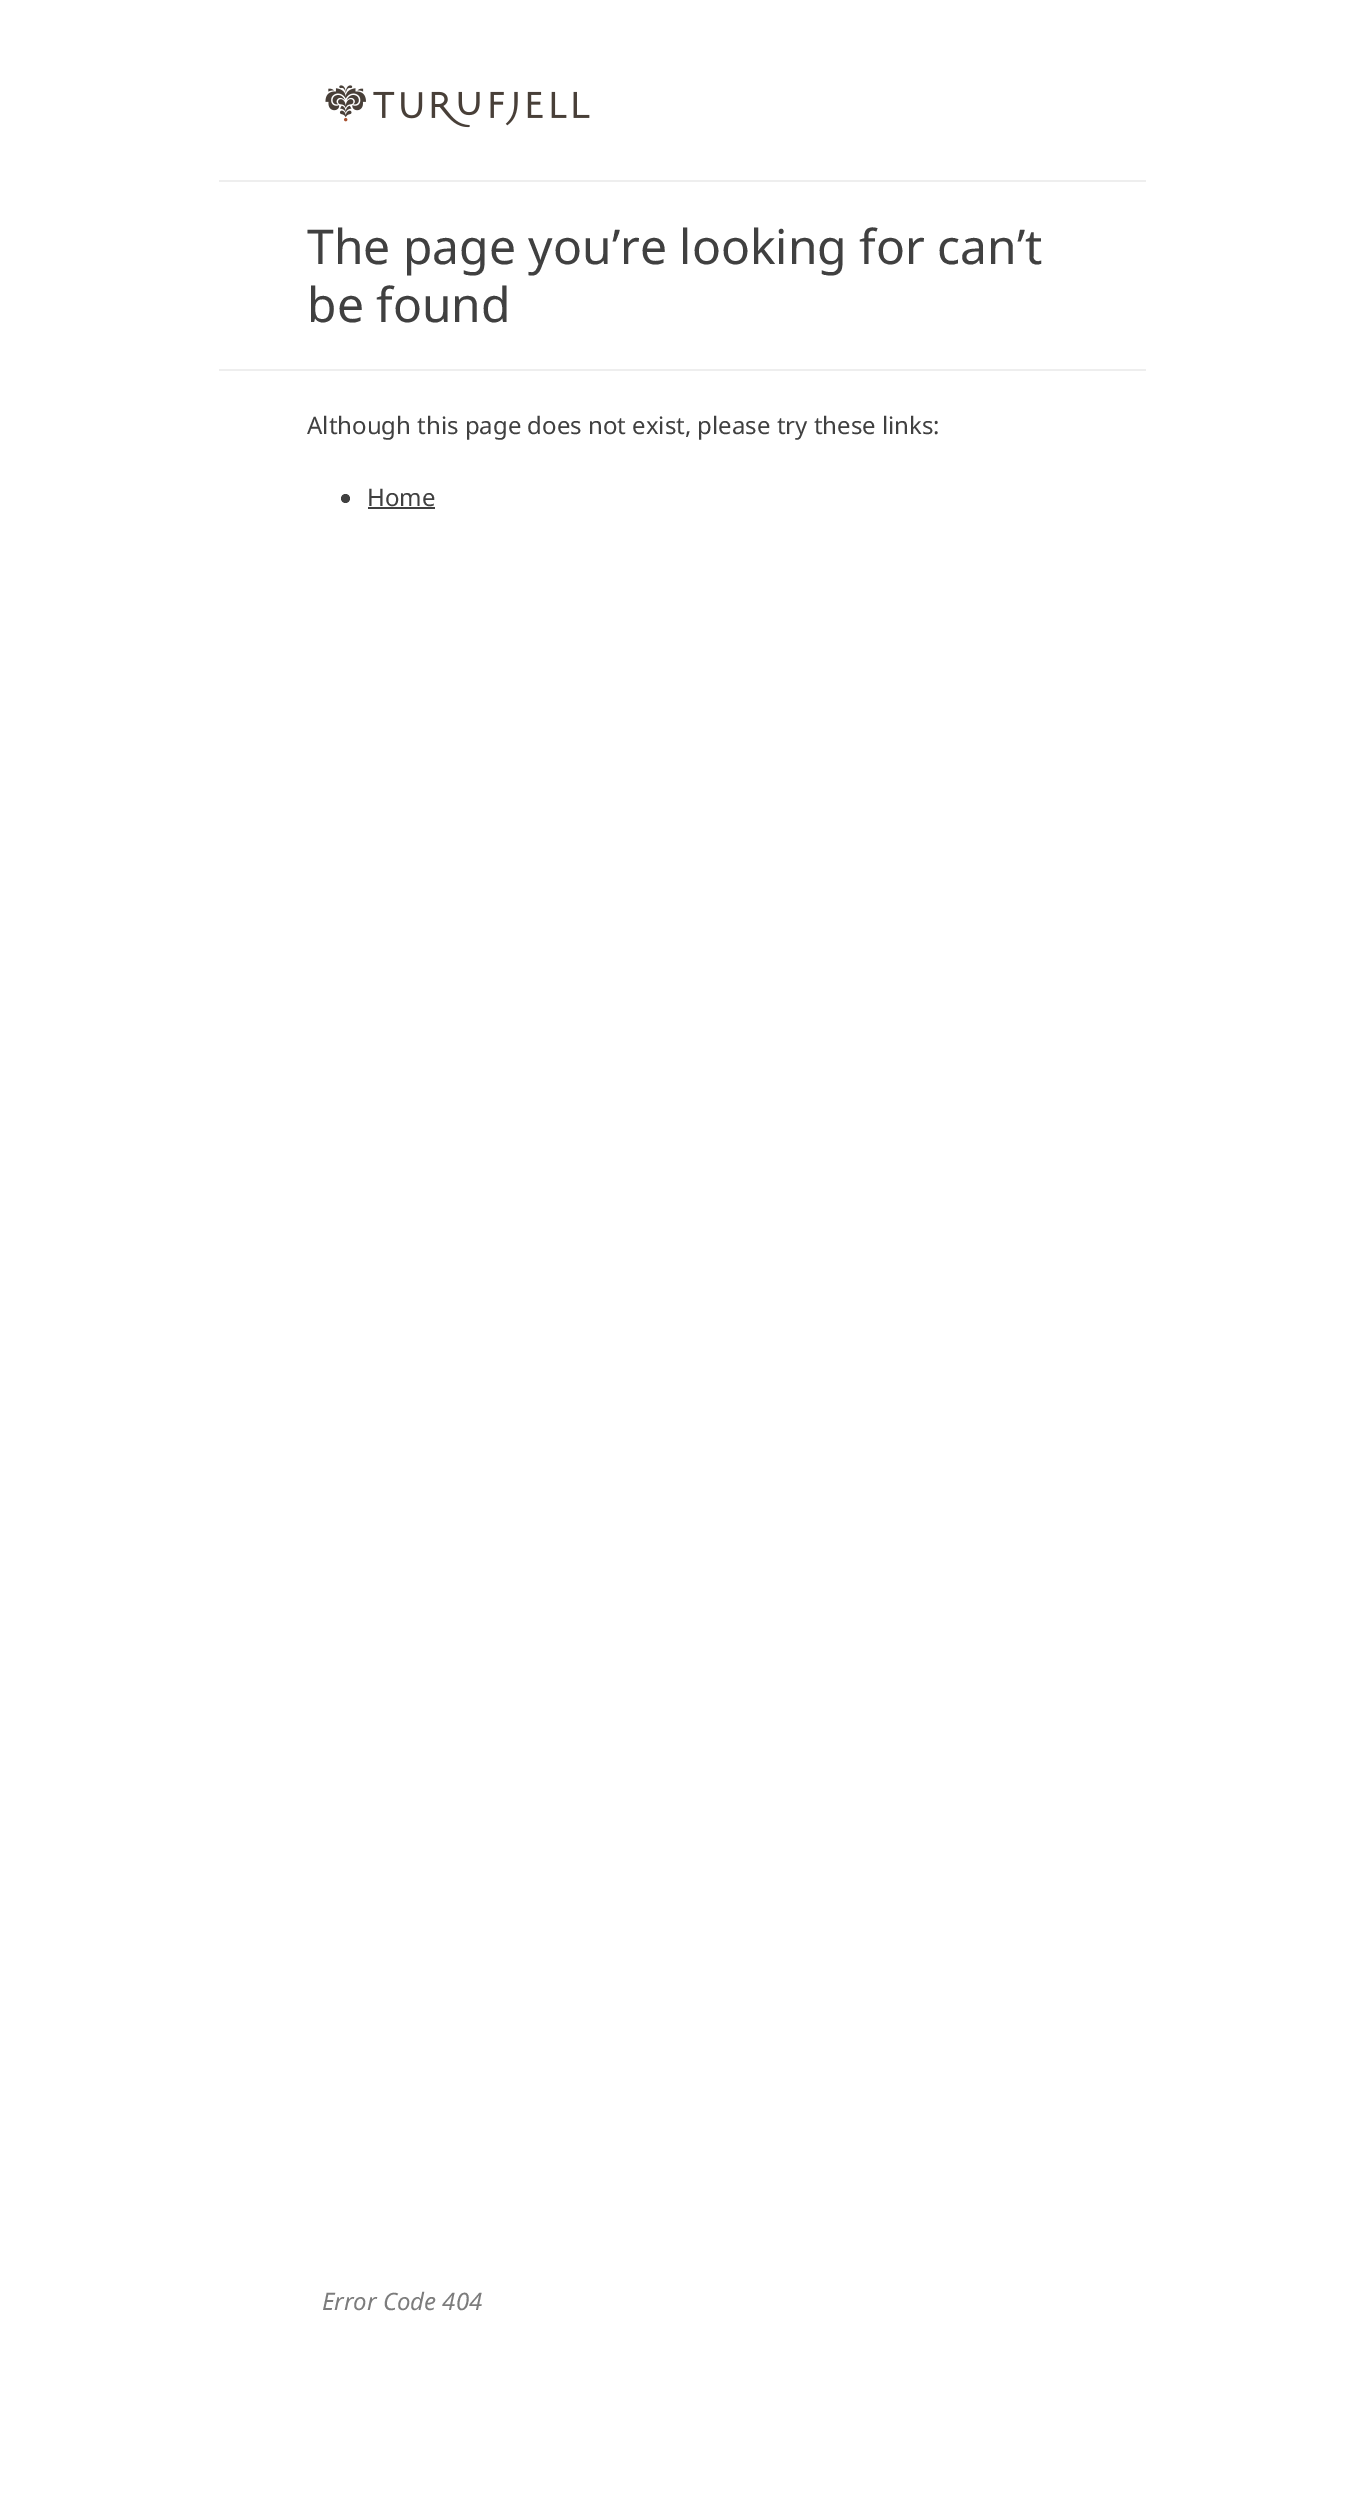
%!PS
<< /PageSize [1363 2507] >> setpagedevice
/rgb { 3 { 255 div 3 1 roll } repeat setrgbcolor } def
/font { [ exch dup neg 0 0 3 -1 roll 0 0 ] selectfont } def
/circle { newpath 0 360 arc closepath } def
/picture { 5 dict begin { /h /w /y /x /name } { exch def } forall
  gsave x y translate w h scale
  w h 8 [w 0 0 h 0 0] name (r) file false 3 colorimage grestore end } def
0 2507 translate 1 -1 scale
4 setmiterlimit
255 255 255 rgb
0 0 1363 2507 rectfill
(img/1.rgb) 325 85 265 43 picture
238 238 238 rgb
219 180 927 2 rectfill
219 369 927 2 rectfill
64 64 64 rgb
345.5 498.5 4.5 circle fill
368 507 67 2 rectfill
/NotoSans-Regular 48 font
307 264 moveto (The page you’re looking for can’t) show
307 322 moveto (be found) show
/NotoSans-Regular 24 font
307 434 moveto (Although this page does not exist, please try these links:) show
367 506 moveto (Home) show
/NotoSans-Italic 24 font
124 124 124 rgb
322 2310 moveto (Error Code 404) show
showpage
